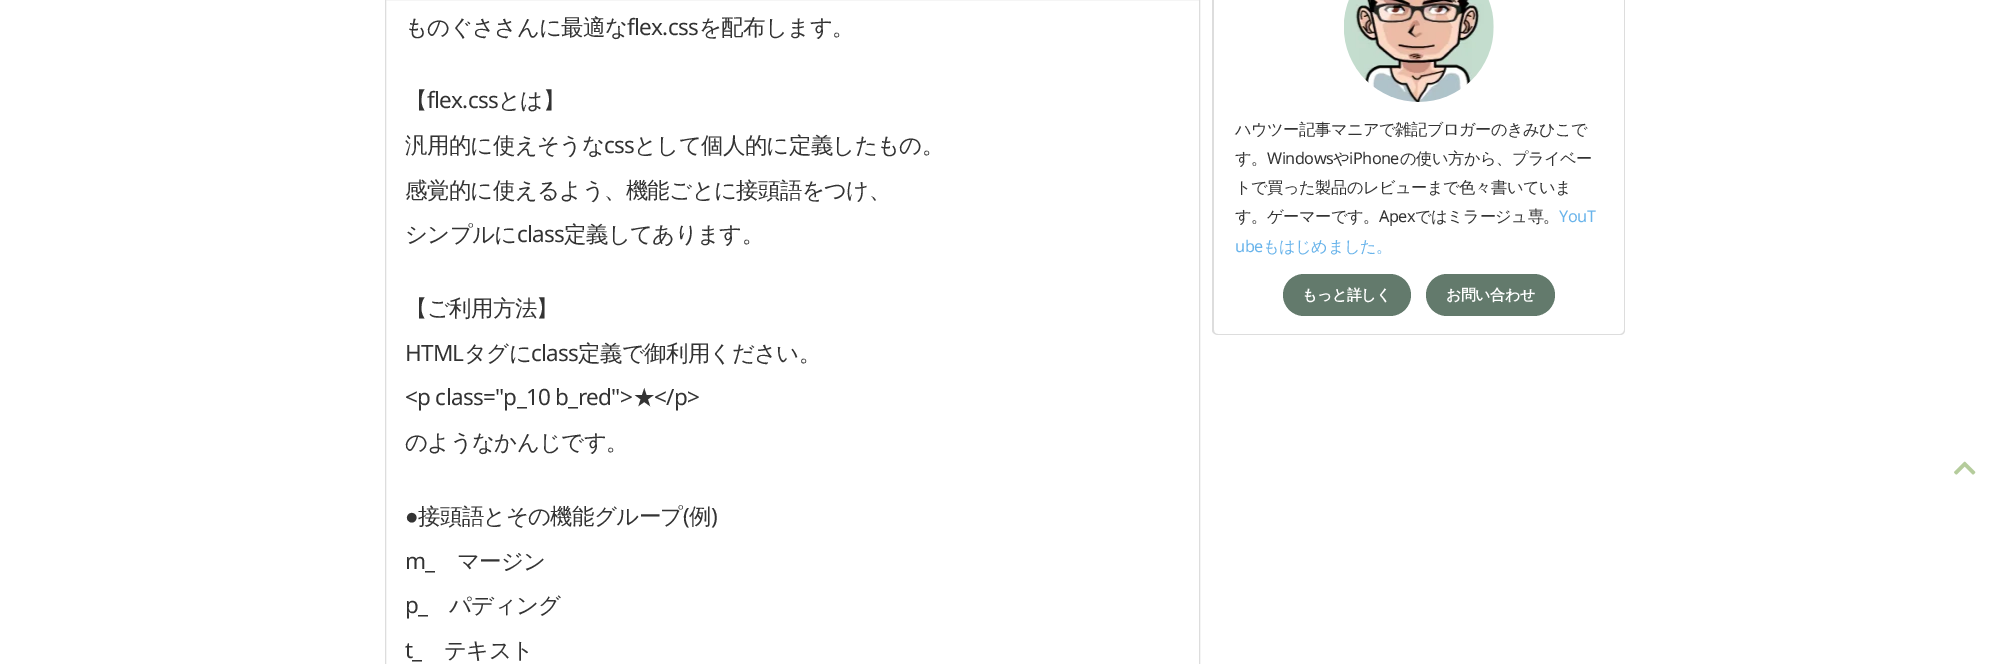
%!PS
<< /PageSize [2009 664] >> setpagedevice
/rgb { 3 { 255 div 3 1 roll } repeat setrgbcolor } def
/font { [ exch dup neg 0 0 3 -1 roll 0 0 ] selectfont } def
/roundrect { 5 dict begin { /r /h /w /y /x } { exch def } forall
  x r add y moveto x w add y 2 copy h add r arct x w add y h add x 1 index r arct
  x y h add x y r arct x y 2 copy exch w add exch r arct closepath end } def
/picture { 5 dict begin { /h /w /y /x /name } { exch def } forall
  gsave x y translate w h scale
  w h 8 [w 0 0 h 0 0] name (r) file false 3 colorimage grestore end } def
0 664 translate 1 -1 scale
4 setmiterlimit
255 255 255 rgb
0 0 2009 664 rectfill
221 221 221 rgb
385.5 -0.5 814 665 rectstroke
1225 -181 moveto 1612 -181 lineto 1619 -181 1625 -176 1625 -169 curveto 1625 330 lineto 1212 330 lineto 1212 -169 lineto 1212 -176 1218 -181 1225 -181 curveto closepath 1225 -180 moveto 1612 -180 lineto 1619 -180 1624 -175 1624 -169 curveto 1624 330 lineto 1214 330 lineto 1214 -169 lineto 1214 -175 1219 -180 1225 -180 curveto closepath eofill
(img/1.rgb) 1344 0 150 102 picture
99 122 108 rgb
1283 274 128 42 21 roundrect fill
1426 274 129 42 21 roundrect fill
221 221 221 rgb
1212 330 moveto 1625 330 lineto 1625 333 1623 335 1620 335 curveto 1218 335 lineto 1215 335 1212 333 1212 330 curveto closepath 1214 330 moveto 1624 330 lineto 1624 332 1622 334 1620 334 curveto 1218 334 lineto 1215 334 1214 332 1214 330 curveto closepath eofill
(img/2.rgb) 1954 461 22 14 picture
/WenQuanYiZenHei-Medium 22.5 font
51 51 51 rgb
405 35 moveto -0.7 0 (ものぐささんに最適な) ashow
/NotoSans-Regular 22.5 font
627 35 moveto -0.7 0 (flex.css) ashow
/WenQuanYiZenHei-Medium 22.5 font
699 35 moveto -0.7 0 (を配布します。) ashow
405 108 moveto -0.7 0 (【) ashow
/NotoSans-Regular 22.5 font
427 108 moveto -0.7 0 (flex.css) ashow
/WenQuanYiZenHei-Medium 22.5 font
498 108 moveto -0.7 0 (とは】) ashow
405 153 moveto -0.7 0 (汎用的に使えそうな) ashow
/NotoSans-Regular 22.5 font
604 153 moveto -0.7 0 (css) ashow
/WenQuanYiZenHei-Medium 22.5 font
634 153 moveto -0.7 0 (として個人的に定義したもの。) ashow
405 198 moveto -0.7 0 (感覚的に使えるよう、機能ごとに接頭語をつけ、) ashow
405 242 moveto -0.7 0 (シンプルに) ashow
/NotoSans-Regular 22.5 font
517 242 moveto -0.7 0 (class) ashow
/WenQuanYiZenHei-Medium 22.5 font
564 242 moveto -0.7 0 (定義してあります。) ashow
405 316 moveto -0.7 0 (【ご利用方法】) ashow
/NotoSans-Regular 22.5 font
405 361 moveto -0.7 0 (HTML) ashow
/WenQuanYiZenHei-Medium 22.5 font
464 361 moveto -0.7 0 (タグに) ashow
/NotoSans-Regular 22.5 font
531 361 moveto -0.7 0 (class) ashow
/WenQuanYiZenHei-Medium 22.5 font
578 361 moveto -0.7 0 (定義で御利用ください。) ashow
/NotoSans-Regular 22.5 font
405 405 moveto -0.7 0 (<p class="p_10 b_red">) ashow
/WenQuanYiZenHei-Medium 22.5 font
633 405 moveto -0.7 0 (★) ashow
/NotoSans-Regular 22.5 font
654 405 moveto -0.7 0 (</p>) ashow
/WenQuanYiZenHei-Medium 22.5 font
405 450 moveto -0.7 0 (のようなかんじです。) ashow
/LiberationSans-Regular 22.5 font
405 524 moveto -0.7 0 (●) ashow
/WenQuanYiZenHei-Medium 22.5 font
418 524 moveto -0.7 0 (接頭語とその機能グループ) ashow
/NotoSans-Regular 22.5 font
683 524 moveto -0.7 0 (\() ashow
/WenQuanYiZenHei-Medium 22.5 font
689 524 moveto -0.7 0 (例) ashow
/NotoSans-Regular 22.5 font
711 524 moveto -0.7 0 (\)) ashow
405 569 moveto -0.7 0 (m_) ashow
/WenQuanYiZenHei-Medium 22.5 font
457 569 moveto -0.7 0 (マージン) ashow
/NotoSans-Regular 22.5 font
405 613 moveto -0.7 0 (p_) ashow
/WenQuanYiZenHei-Medium 22.5 font
449 613 moveto -0.7 0 (パディング) ashow
/NotoSans-Regular 22.5 font
405 658 moveto -0.7 0 (t_) ashow
/WenQuanYiZenHei-Medium 22.5 font
444 658 moveto -0.7 0 (テキスト) ashow
/WenQuanYiZenHei-Medium 16.25 font
1235 135 moveto -0.5 0 (ハウツー記事マニアで雑記ブロガーのきみひこで) ashow
1235 164 moveto -0.5 0 (す。) ashow
/NotoSans-Regular 16.25 font
1267 164 moveto -0.5 0 (Windows) ashow
/WenQuanYiZenHei-Medium 16.25 font
1333 164 moveto -0.5 0 (や) ashow
/NotoSans-Regular 16.25 font
1349 164 moveto -0.5 0 (iPhone) ashow
/WenQuanYiZenHei-Medium 16.25 font
1400 164 moveto -0.5 0 (の使い方から、プライベー) ashow
1235 193 moveto -0.5 0 (トで買った製品のレビューまで色々書いていま) ashow
1235 222 moveto -0.5 0 (す。ゲーマーです。) ashow
/NotoSans-Regular 16.25 font
1379 222 moveto -0.5 0 (Apex) ashow
/WenQuanYiZenHei-Medium 16.25 font
1415 222 moveto -0.5 0 (ではミラージュ専。) ashow
/NotoSans-Regular 16.25 font
105 180 235 rgb
1559 222 moveto -0.5 0 (YouT) ashow
1235 252 moveto -0.5 0 (ube) ashow
/WenQuanYiZenHei-Medium 16.25 font
1263 252 moveto -0.5 0 (もはじめました。) ashow
/WenQuanYiZenHei-Bold 15 font
255 255 255 rgb
1302 300 moveto -0.5 0 (もっと詳しく) ashow
1446 300 moveto -0.5 0 (お問い合わせ) ashow
showpage
